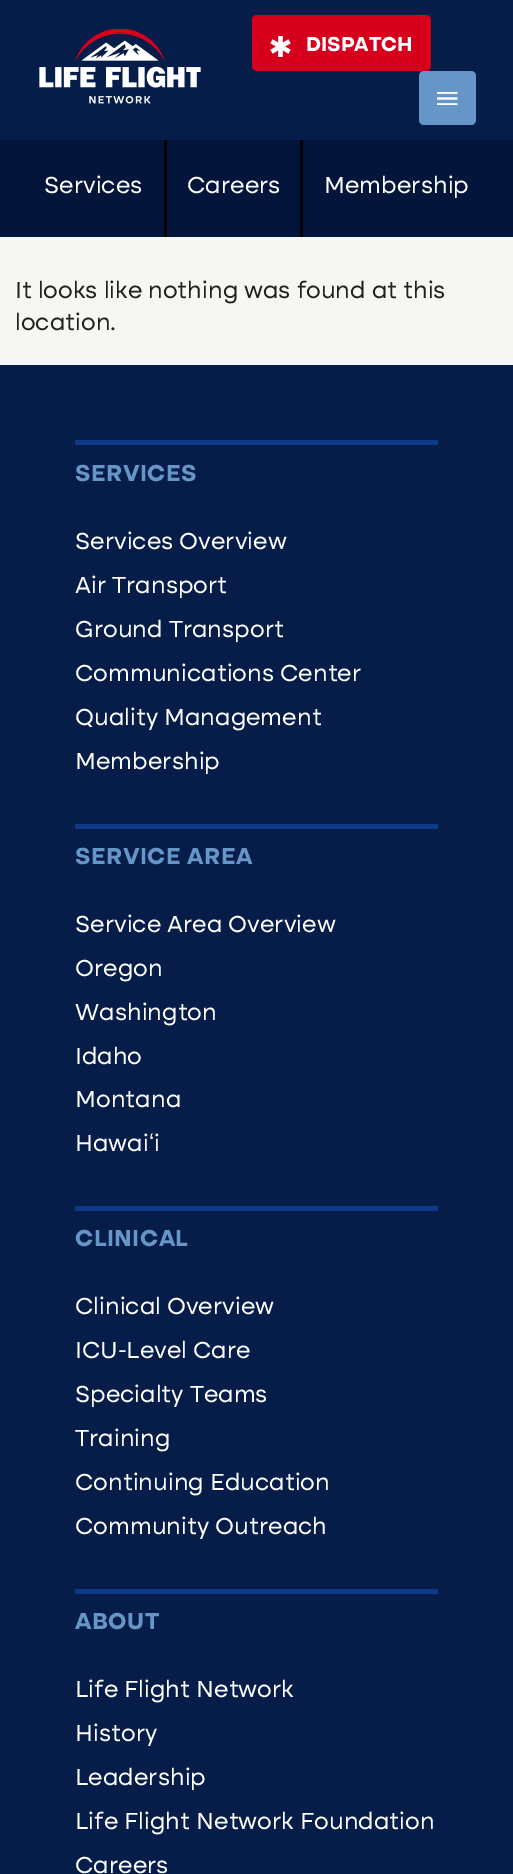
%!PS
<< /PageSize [513 1874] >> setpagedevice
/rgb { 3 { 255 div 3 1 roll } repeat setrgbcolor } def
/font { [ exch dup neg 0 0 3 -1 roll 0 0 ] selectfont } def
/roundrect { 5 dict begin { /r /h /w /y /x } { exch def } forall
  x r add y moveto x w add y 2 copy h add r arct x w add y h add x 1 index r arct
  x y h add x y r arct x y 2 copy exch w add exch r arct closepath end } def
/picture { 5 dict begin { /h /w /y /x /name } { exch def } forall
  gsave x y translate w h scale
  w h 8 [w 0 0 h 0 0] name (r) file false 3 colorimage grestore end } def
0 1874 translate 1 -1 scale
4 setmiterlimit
246 246 245 rgb
0 0 513 1874 rectfill
7 29 73 rgb
0 0 513 140 rectfill
(img/1.rgb) 39 29 162 75 picture
214 0 28 rgb
252 15 179 56 5 roundrect fill
(img/2.rgb) 270 36 21 21 picture
102 150 199 rgb
419 71 57 54 5 roundrect fill
(img/3.rgb) 437 92 21 13 picture
[
  [0 140 513 97 3 21 58]
  [164 140 3 97 0 0 0]
  [300 140 3 97 0 0 0]
  [0 365 513 1509 7 29 73]
  [75 440 363 5 14 57 137]
  [75 824 363 5 14 57 137]
  [75 1206 363 5 14 57 137]
  [75 1589 363 5 14 57 137]
] { aload pop rgb rectfill } forall
/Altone-Bold 21 font
255 255 255 rgb
306 51 moveto (DISPATCH) show
/Altone-Regular 24 font
[
  [(Services) 44 193]
  [(Careers) 187 193]
  [(Membership) 324 193]
] { aload pop moveto show } forall
34 33 29 rgb
15 298 moveto (It looks like nothing was found at this) show
15 330 moveto (location.) show
/Altone-Bold 24 font
102 150 199 rgb
75 481 moveto 0.5 0 (SERVICES) ashow
/Altone-Regular 24 font
255 255 255 rgb
[
  [(Services Overview) 75 549]
  [(Air Transport) 75 593]
  [(Ground Transport) 75 637]
  [(Communications Center) 75 681]
  [(Quality Management) 75 725]
  [(Membership) 75 769]
] { aload pop moveto show } forall
/Altone-Bold 24 font
102 150 199 rgb
75 864 moveto 0.5 0 (SERVICE AREA) ashow
/Altone-Regular 24 font
255 255 255 rgb
[
  [(Service Area Overview) 75 932]
  [(Oregon) 75 976]
  [(Washington) 75 1020]
  [(Idaho) 75 1064]
  [(Montana) 75 1107]
  [(Hawai) 75 1151]
] { aload pop moveto show } forall
/LiberationSans-Regular 24 font
149 1151 moveto (ʻ) show
/Altone-Regular 24 font
154 1151 moveto (i) show
/Altone-Bold 24 font
102 150 199 rgb
75 1246 moveto 0.5 0 (CLINICAL) ashow
/Altone-Regular 24 font
255 255 255 rgb
[
  [(Clinical Overview) 75 1314]
  [(ICU-Level Care) 75 1358]
  [(Specialty Teams) 75 1402]
  [(Training) 75 1446]
  [(Continuing Education) 75 1490]
  [(Community Outreach) 75 1534]
] { aload pop moveto show } forall
/Altone-Bold 24 font
102 150 199 rgb
75 1629 moveto 0.5 0 (ABOUT) ashow
/Altone-Regular 24 font
255 255 255 rgb
[
  [(Life Flight Network) 75 1697]
  [(History) 75 1741]
  [(Leadership) 75 1785]
  [(Life Flight Network Foundation) 75 1829]
  [(Careers) 75 1873]
] { aload pop moveto show } forall
showpage
